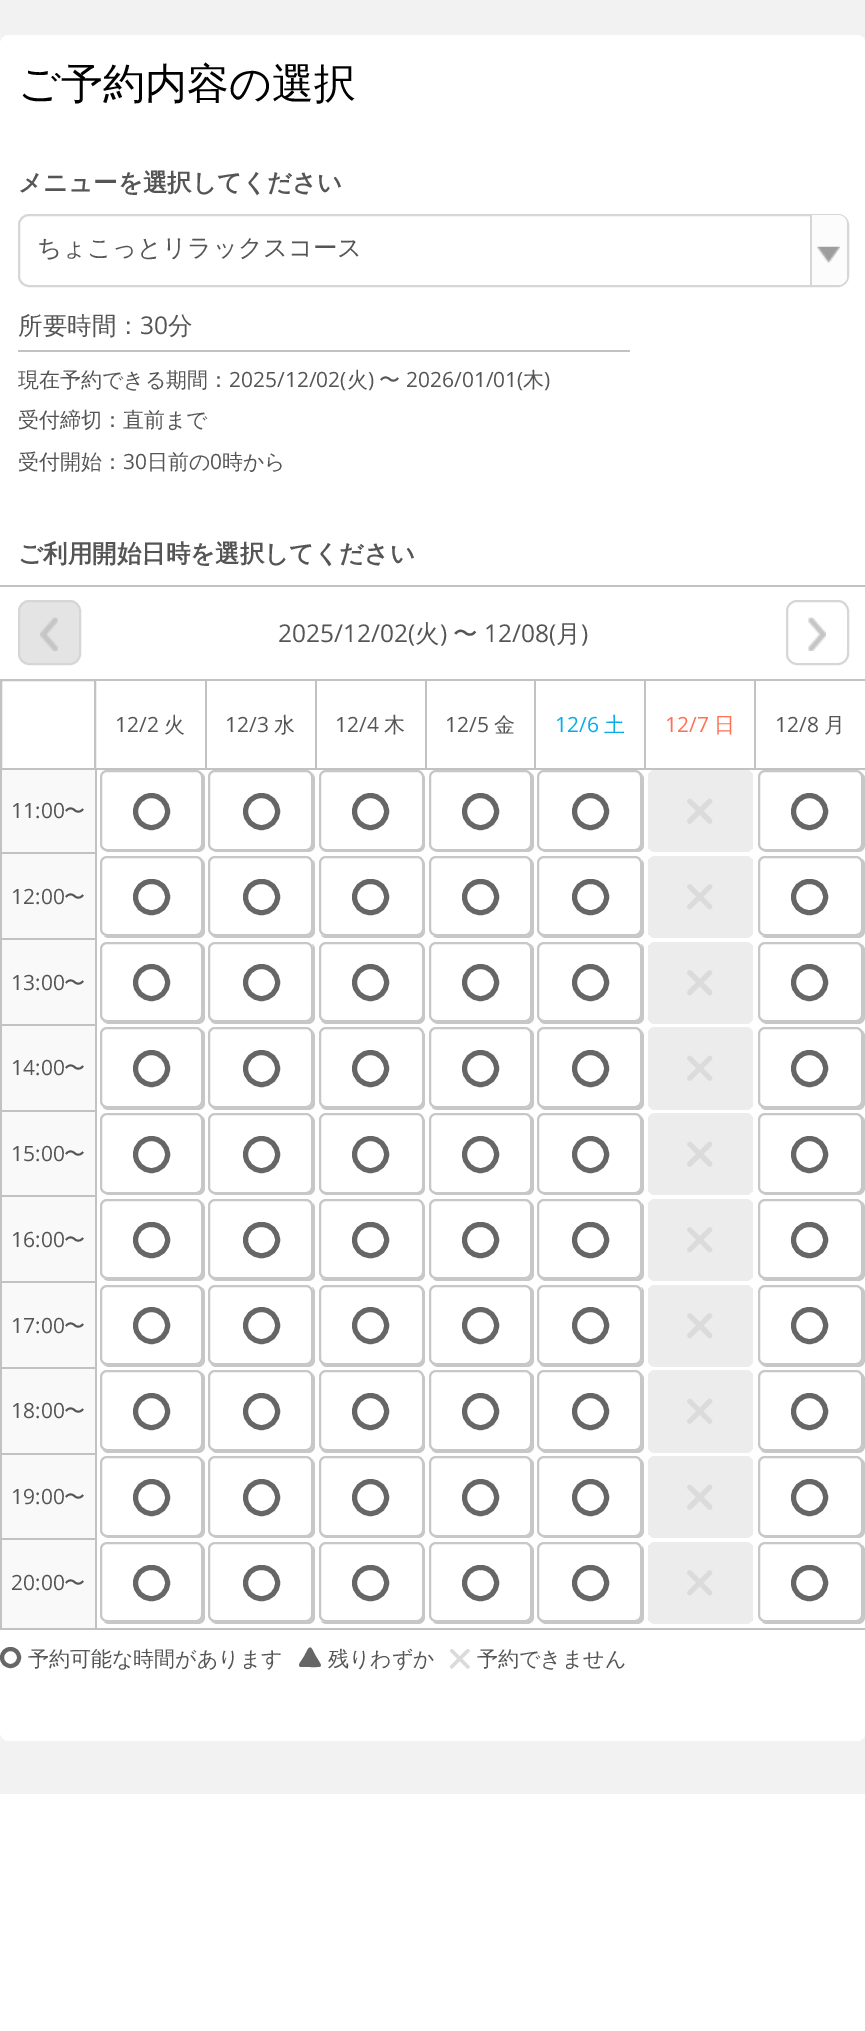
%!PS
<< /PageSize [865 2031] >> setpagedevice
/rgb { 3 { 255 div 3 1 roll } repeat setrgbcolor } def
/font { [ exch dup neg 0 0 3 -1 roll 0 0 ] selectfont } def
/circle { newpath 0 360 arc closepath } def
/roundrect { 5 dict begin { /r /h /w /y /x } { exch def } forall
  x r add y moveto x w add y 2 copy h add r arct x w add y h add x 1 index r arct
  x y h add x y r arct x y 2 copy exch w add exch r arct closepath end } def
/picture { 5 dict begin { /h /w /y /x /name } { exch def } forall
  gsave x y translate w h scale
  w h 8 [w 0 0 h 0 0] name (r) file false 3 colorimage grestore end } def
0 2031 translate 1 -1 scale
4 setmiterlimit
255 255 255 rgb
0 0 865 2031 rectfill
242 242 242 rgb
0 0 865 1794 rectfill
255 255 255 rgb
0 35 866 1706 9 roundrect fill
215 214 214 rgb
2 setlinewidth
19 215 829 71 10 roundrect stroke
252 252 252 rgb
810 215 moveto 838 215 lineto 843 215 847 219 847 224 curveto 847 276 lineto 847 281 843 285 838 285 curveto 810 285 lineto closepath fill
215 214 214 rgb
810 215 2 70 rectfill
(img/1.rgb) 817 246 23 17 picture
194 194 194 rgb
18 350 612 2 rectfill
0 585 865 2 rectfill
228 228 228 rgb
19 601 61 63 10 roundrect gsave fill grestore
215 214 214 rgb
stroke
(img/2.rgb) 40 617 18 34 picture
787 601 61 63 10 roundrect stroke
(img/3.rgb) 808 617 18 34 picture
194 194 194 rgb
1 680 94 89 rectstroke
[
  [96 679 769 2 194 194 194]
  [205 679 2 91 194 194 194]
  [96 768 111 2 194 194 194]
  [315 679 2 91 194 194 194]
  [207 768 110 2 194 194 194]
  [425 679 2 91 194 194 194]
  [317 768 110 2 194 194 194]
  [534 679 2 91 194 194 194]
  [427 768 109 2 194 194 194]
  [644 679 2 91 194 194 194]
  [536 768 110 2 194 194 194]
  [754 679 2 91 194 194 194]
  [646 768 219 2 194 194 194]
  [0 1628 865 2 194 194 194]
  [0 770 2 859 194 194 194]
  [2 770 93 858 249 249 249]
  [95 770 2 858 194 194 194]
  [2 852 93 2 194 194 194]
  [2 938 93 2 194 194 194]
  [2 1024 93 2 194 194 194]
  [2 1110 93 2 194 194 194]
  [2 1195 93 2 194 194 194]
  [2 1281 93 2 194 194 194]
  [2 1367 93 2 194 194 194]
  [2 1453 93 2 194 194 194]
  [2 1538 93 2 194 194 194]
] { aload pop rgb rectfill } forall
199 199 199 rgb
104 850 moveto 105 851 107 852 109 852 curveto 198 852 lineto 202 852 205 849 205 845 curveto 205 779 lineto 205 777 204 774 202 773 curveto 203 774 203 776 203 777 curveto 203 844 lineto 203 847 200 850 196 850 curveto 107 850 lineto closepath fill
101 771 101 79 6 roundrect stroke
102 102 102 rgb
5 setlinewidth
151.5 811.5 16 circle stroke
199 199 199 rgb
104 936 moveto 105 937 107 938 109 938 curveto 198 938 lineto 202 938 205 935 205 931 curveto 205 865 lineto 205 863 204 861 202 859 curveto 203 863 lineto 203 929 lineto 203 933 200 936 196 936 curveto 107 936 lineto closepath fill
2 setlinewidth
101 857 101 78 6 roundrect stroke
102 102 102 rgb
5 setlinewidth
135.5 881.5 32 31 15.5 roundrect stroke
199 199 199 rgb
103 1021 moveto 105 1023 107 1024 109 1024 curveto 198 1024 lineto 202 1024 205 1021 205 1017 curveto 205 950 lineto 205 947 203 945 201 944 curveto 202 945 203 947 203 948 curveto 203 1015 lineto 203 1019 200 1022 196 1022 curveto 107 1022 lineto closepath fill
2 setlinewidth
101 943 101 78 6 roundrect stroke
102 102 102 rgb
5 setlinewidth
151.5 982.5 16 circle stroke
199 199 199 rgb
103 1107 moveto 104 1109 106 1110 109 1110 curveto 198 1110 lineto 202 1110 205 1107 205 1103 curveto 205 1036 lineto 205 1033 204 1031 202 1030 curveto 202 1031 203 1033 203 1034 curveto 203 1101 lineto 203 1105 200 1108 196 1108 curveto 107 1108 lineto 105 1108 104 1107 103 1107 curveto closepath fill
2 setlinewidth
101 1028 101 79 6 roundrect stroke
102 102 102 rgb
5 setlinewidth
151.5 1068.5 16 circle stroke
199 199 199 rgb
104 1193 moveto 105 1194 107 1195 109 1195 curveto 198 1195 lineto 202 1195 205 1192 205 1188 curveto 205 1122 lineto 205 1120 204 1117 202 1116 curveto 203 1117 203 1119 203 1120 curveto 203 1186 lineto 203 1190 200 1194 196 1194 curveto 107 1194 lineto closepath fill
2 setlinewidth
101 1114 101 79 6 roundrect stroke
102 102 102 rgb
5 setlinewidth
151.5 1154.5 16 circle stroke
199 199 199 rgb
104 1279 moveto 105 1280 107 1281 109 1281 curveto 198 1281 lineto 202 1281 205 1278 205 1274 curveto 205 1208 lineto 205 1206 204 1204 202 1202 curveto 203 1206 lineto 203 1272 lineto 203 1276 200 1279 196 1279 curveto 107 1279 lineto closepath fill
2 setlinewidth
101 1200 101 78 6 roundrect stroke
102 102 102 rgb
5 setlinewidth
135.5 1224.5 32 31 15.5 roundrect stroke
199 199 199 rgb
103 1364 moveto 105 1366 107 1367 109 1367 curveto 198 1367 lineto 202 1367 205 1364 205 1360 curveto 205 1293 lineto 205 1290 203 1288 201 1287 curveto 202 1288 203 1290 203 1292 curveto 203 1358 lineto 203 1362 200 1365 196 1365 curveto 107 1365 lineto closepath fill
2 setlinewidth
101 1286 101 78 6 roundrect stroke
102 102 102 rgb
5 setlinewidth
151.5 1325.5 16 circle stroke
199 199 199 rgb
103 1450 moveto 104 1452 106 1453 109 1453 curveto 198 1453 lineto 202 1453 205 1450 205 1446 curveto 205 1379 lineto 205 1376 204 1374 202 1373 curveto 202 1374 203 1376 203 1377 curveto 203 1444 lineto 203 1448 200 1451 196 1451 curveto 107 1451 lineto 105 1451 104 1450 103 1450 curveto closepath fill
2 setlinewidth
101 1371 101 79 6 roundrect stroke
102 102 102 rgb
5 setlinewidth
151.5 1411.5 16 circle stroke
199 199 199 rgb
104 1536 moveto 105 1537 107 1538 109 1538 curveto 198 1538 lineto 202 1538 205 1535 205 1531 curveto 205 1465 lineto 205 1463 204 1460 202 1459 curveto 203 1460 203 1462 203 1463 curveto 203 1530 lineto 203 1533 200 1536 196 1536 curveto 107 1536 lineto closepath fill
2 setlinewidth
101 1457 101 79 6 roundrect stroke
102 102 102 rgb
5 setlinewidth
151.5 1497.5 16 circle stroke
199 199 199 rgb
104 1622 moveto 105 1623 107 1624 109 1624 curveto 198 1624 lineto 202 1624 205 1621 205 1617 curveto 205 1551 lineto 205 1549 204 1547 202 1545 curveto 203 1549 lineto 203 1615 lineto 203 1619 200 1622 196 1622 curveto 107 1622 lineto closepath fill
2 setlinewidth
101 1543 101 78 6 roundrect stroke
102 102 102 rgb
5 setlinewidth
135.5 1567.5 32 31 15.5 roundrect stroke
199 199 199 rgb
212 849 moveto 213 851 215 852 217 852 curveto 308 852 lineto 312 852 315 849 315 845 curveto 315 779 lineto 315 777 314 775 312 773 curveto 313 777 lineto 313 844 lineto 313 847 310 850 306 850 curveto 215 850 lineto 214 850 213 850 212 849 curveto closepath fill
2 setlinewidth
209 771 103 79 6 roundrect stroke
102 102 102 rgb
5 setlinewidth
261.5 811.5 16 circle stroke
199 199 199 rgb
211 935 moveto 213 937 215 938 217 938 curveto 308 938 lineto 312 938 315 935 315 931 curveto 315 865 lineto 315 863 314 861 313 860 curveto 313 863 lineto 313 929 lineto 313 933 310 936 306 936 curveto 215 936 lineto 214 936 212 936 211 935 curveto closepath fill
2 setlinewidth
209 857 103 78 6 roundrect stroke
102 102 102 rgb
5 setlinewidth
245.5 881.5 32 31 15.5 roundrect stroke
199 199 199 rgb
211 1021 moveto 212 1023 214 1024 217 1024 curveto 308 1024 lineto 312 1024 315 1021 315 1017 curveto 315 950 lineto 315 947 314 945 312 944 curveto 313 945 313 947 313 948 curveto 313 1015 lineto 313 1019 310 1022 306 1022 curveto 215 1022 lineto 214 1022 212 1021 211 1021 curveto closepath fill
2 setlinewidth
209 943 103 78 6 roundrect stroke
102 102 102 rgb
5 setlinewidth
261.5 982.5 16 circle stroke
199 199 199 rgb
211 1106 moveto 212 1108 214 1110 217 1110 curveto 308 1110 lineto 312 1110 315 1107 315 1103 curveto 315 1036 lineto 315 1034 314 1032 312 1030 curveto 313 1031 313 1033 313 1034 curveto 313 1101 lineto 313 1105 310 1108 306 1108 curveto 215 1108 lineto 214 1108 212 1107 211 1106 curveto closepath fill
2 setlinewidth
209 1028 103 79 6 roundrect stroke
102 102 102 rgb
5 setlinewidth
261.5 1068.5 16 circle stroke
199 199 199 rgb
212 1192 moveto 213 1194 215 1195 217 1195 curveto 308 1195 lineto 312 1195 315 1192 315 1188 curveto 315 1122 lineto 315 1120 314 1118 312 1116 curveto 313 1120 lineto 313 1186 lineto 313 1190 310 1194 306 1194 curveto 215 1194 lineto 214 1194 213 1193 212 1192 curveto closepath fill
2 setlinewidth
209 1114 103 79 6 roundrect stroke
102 102 102 rgb
5 setlinewidth
261.5 1154.5 16 circle stroke
199 199 199 rgb
211 1278 moveto 213 1280 215 1281 217 1281 curveto 308 1281 lineto 312 1281 315 1278 315 1274 curveto 315 1208 lineto 315 1206 314 1204 313 1203 curveto 313 1206 lineto 313 1272 lineto 313 1276 310 1279 306 1279 curveto 215 1279 lineto 214 1279 212 1279 211 1278 curveto closepath fill
2 setlinewidth
209 1200 103 78 6 roundrect stroke
102 102 102 rgb
5 setlinewidth
245.5 1224.5 32 31 15.5 roundrect stroke
199 199 199 rgb
211 1364 moveto 212 1366 214 1367 217 1367 curveto 308 1367 lineto 312 1367 315 1364 315 1360 curveto 315 1293 lineto 315 1290 314 1288 312 1287 curveto 313 1288 313 1290 313 1292 curveto 313 1358 lineto 313 1362 310 1365 306 1365 curveto 215 1365 lineto 214 1365 212 1364 211 1364 curveto closepath fill
2 setlinewidth
209 1286 103 78 6 roundrect stroke
102 102 102 rgb
5 setlinewidth
261.5 1325.5 16 circle stroke
199 199 199 rgb
211 1449 moveto 212 1451 214 1453 217 1453 curveto 308 1453 lineto 312 1453 315 1450 315 1446 curveto 315 1379 lineto 315 1377 314 1375 312 1373 curveto 313 1374 313 1376 313 1377 curveto 313 1444 lineto 313 1448 310 1451 306 1451 curveto 215 1451 lineto 214 1451 212 1450 211 1449 curveto closepath fill
2 setlinewidth
209 1371 103 79 6 roundrect stroke
102 102 102 rgb
5 setlinewidth
261.5 1411.5 16 circle stroke
199 199 199 rgb
212 1535 moveto 213 1537 215 1538 217 1538 curveto 308 1538 lineto 312 1538 315 1535 315 1531 curveto 315 1465 lineto 315 1463 314 1461 312 1459 curveto 313 1463 lineto 313 1530 lineto 313 1533 310 1536 306 1536 curveto 215 1536 lineto 214 1536 213 1536 212 1535 curveto closepath fill
2 setlinewidth
209 1457 103 79 6 roundrect stroke
102 102 102 rgb
5 setlinewidth
261.5 1497.5 16 circle stroke
199 199 199 rgb
211 1621 moveto 213 1623 215 1624 217 1624 curveto 308 1624 lineto 312 1624 315 1621 315 1617 curveto 315 1551 lineto 315 1549 314 1547 313 1546 curveto 313 1549 lineto 313 1615 lineto 313 1619 310 1622 306 1622 curveto 215 1622 lineto 214 1622 212 1622 211 1621 curveto closepath fill
2 setlinewidth
209 1543 103 78 6 roundrect stroke
102 102 102 rgb
5 setlinewidth
245.5 1567.5 32 31 15.5 roundrect stroke
199 199 199 rgb
321 849 moveto 323 851 325 852 327 852 curveto 418 852 lineto 422 852 425 849 425 845 curveto 425 779 lineto 425 777 424 775 423 774 curveto 424 777 lineto 424 844 lineto 424 847 420 850 416 850 curveto 326 850 lineto 324 850 323 850 321 849 curveto closepath fill
2 setlinewidth
320 771 103 79 6 roundrect stroke
102 102 102 rgb
5 setlinewidth
370.5 811.5 16 circle stroke
199 199 199 rgb
321 935 moveto 322 937 324 938 327 938 curveto 418 938 lineto 422 938 425 935 425 931 curveto 425 865 lineto 425 863 424 861 423 860 curveto 424 863 lineto 424 929 lineto 424 933 420 936 416 936 curveto 326 936 lineto 324 936 322 936 321 935 curveto closepath fill
2 setlinewidth
320 857 103 78 6 roundrect stroke
102 102 102 rgb
5 setlinewidth
354.5 881.5 32 31 15.5 roundrect stroke
199 199 199 rgb
321 1020 moveto 322 1022 324 1024 327 1024 curveto 418 1024 lineto 422 1024 425 1021 425 1017 curveto 425 950 lineto 425 948 424 946 422 944 curveto 423 946 424 947 424 948 curveto 424 1015 lineto 424 1019 420 1022 416 1022 curveto 326 1022 lineto 324 1022 322 1021 321 1020 curveto closepath fill
2 setlinewidth
320 943 103 78 6 roundrect stroke
102 102 102 rgb
5 setlinewidth
370.5 982.5 16 circle stroke
199 199 199 rgb
321 1106 moveto 322 1108 324 1110 327 1110 curveto 418 1110 lineto 422 1110 425 1107 425 1103 curveto 425 1036 lineto 425 1034 424 1032 422 1031 curveto 423 1032 424 1033 424 1034 curveto 424 1101 lineto 424 1105 420 1108 416 1108 curveto 326 1108 lineto 324 1108 322 1107 321 1106 curveto closepath fill
2 setlinewidth
320 1028 103 79 6 roundrect stroke
102 102 102 rgb
5 setlinewidth
370.5 1068.5 16 circle stroke
199 199 199 rgb
321 1192 moveto 323 1194 325 1195 327 1195 curveto 418 1195 lineto 422 1195 425 1192 425 1188 curveto 425 1122 lineto 425 1120 424 1118 423 1117 curveto 424 1120 lineto 424 1186 lineto 424 1190 420 1194 416 1194 curveto 326 1194 lineto 324 1194 323 1193 321 1192 curveto closepath fill
2 setlinewidth
320 1114 103 79 6 roundrect stroke
102 102 102 rgb
5 setlinewidth
370.5 1154.5 16 circle stroke
199 199 199 rgb
321 1278 moveto 322 1280 324 1281 327 1281 curveto 418 1281 lineto 422 1281 425 1278 425 1274 curveto 425 1208 lineto 425 1206 424 1204 423 1203 curveto 424 1206 lineto 424 1272 lineto 424 1276 420 1279 416 1279 curveto 326 1279 lineto 324 1279 322 1279 321 1278 curveto closepath fill
2 setlinewidth
320 1200 103 78 6 roundrect stroke
102 102 102 rgb
5 setlinewidth
354.5 1224.5 32 31 15.5 roundrect stroke
199 199 199 rgb
321 1363 moveto 322 1365 324 1367 327 1367 curveto 418 1367 lineto 422 1367 425 1364 425 1360 curveto 425 1293 lineto 425 1291 424 1289 422 1287 curveto 423 1289 424 1290 424 1292 curveto 424 1358 lineto 424 1362 420 1365 416 1365 curveto 326 1365 lineto 324 1365 322 1364 321 1363 curveto closepath fill
2 setlinewidth
320 1286 103 78 6 roundrect stroke
102 102 102 rgb
5 setlinewidth
370.5 1325.5 16 circle stroke
199 199 199 rgb
321 1449 moveto 322 1451 324 1453 327 1453 curveto 418 1453 lineto 422 1453 425 1450 425 1446 curveto 425 1379 lineto 425 1377 424 1375 422 1374 curveto 423 1375 424 1376 424 1377 curveto 424 1444 lineto 424 1448 420 1451 416 1451 curveto 326 1451 lineto 324 1451 322 1450 321 1449 curveto closepath fill
2 setlinewidth
320 1371 103 79 6 roundrect stroke
102 102 102 rgb
5 setlinewidth
370.5 1411.5 16 circle stroke
199 199 199 rgb
321 1535 moveto 323 1537 325 1538 327 1538 curveto 418 1538 lineto 422 1538 425 1535 425 1531 curveto 425 1465 lineto 425 1463 424 1461 423 1460 curveto 424 1463 lineto 424 1530 lineto 424 1533 420 1536 416 1536 curveto 326 1536 lineto 324 1536 323 1536 321 1535 curveto closepath fill
2 setlinewidth
320 1457 103 79 6 roundrect stroke
102 102 102 rgb
5 setlinewidth
370.5 1497.5 16 circle stroke
199 199 199 rgb
321 1621 moveto 322 1623 324 1624 327 1624 curveto 418 1624 lineto 422 1624 425 1621 425 1617 curveto 425 1551 lineto 425 1549 424 1547 423 1546 curveto 424 1549 lineto 424 1615 lineto 424 1619 420 1622 416 1622 curveto 326 1622 lineto 324 1622 322 1622 321 1621 curveto closepath fill
2 setlinewidth
320 1543 103 78 6 roundrect stroke
102 102 102 rgb
5 setlinewidth
354.5 1567.5 32 31 15.5 roundrect stroke
199 199 199 rgb
433 850 moveto 434 851 436 852 438 852 curveto 527 852 lineto 531 852 534 849 534 845 curveto 534 779 lineto 534 777 533 774 531 773 curveto 532 774 532 776 532 777 curveto 532 844 lineto 532 847 529 850 525 850 curveto 436 850 lineto closepath fill
2 setlinewidth
430 771 101 79 6 roundrect stroke
102 102 102 rgb
5 setlinewidth
480.5 811.5 16 circle stroke
199 199 199 rgb
433 936 moveto 434 937 436 938 438 938 curveto 527 938 lineto 531 938 534 935 534 931 curveto 534 865 lineto 534 863 533 861 531 859 curveto 532 863 lineto 532 929 lineto 532 933 529 936 525 936 curveto 436 936 lineto closepath fill
2 setlinewidth
430 857 101 78 6 roundrect stroke
102 102 102 rgb
5 setlinewidth
464.5 881.5 32 31 15.5 roundrect stroke
199 199 199 rgb
432 1021 moveto 434 1023 436 1024 438 1024 curveto 527 1024 lineto 531 1024 534 1021 534 1017 curveto 534 950 lineto 534 947 532 945 530 944 curveto 531 945 532 947 532 948 curveto 532 1015 lineto 532 1019 529 1022 525 1022 curveto 436 1022 lineto closepath fill
2 setlinewidth
430 943 101 78 6 roundrect stroke
102 102 102 rgb
5 setlinewidth
480.5 982.5 16 circle stroke
199 199 199 rgb
432 1107 moveto 433 1109 435 1110 438 1110 curveto 527 1110 lineto 531 1110 534 1107 534 1103 curveto 534 1036 lineto 534 1033 533 1031 531 1030 curveto 531 1031 532 1033 532 1034 curveto 532 1101 lineto 532 1105 529 1108 525 1108 curveto 436 1108 lineto 434 1108 433 1107 432 1107 curveto closepath fill
2 setlinewidth
430 1028 101 79 6 roundrect stroke
102 102 102 rgb
5 setlinewidth
480.5 1068.5 16 circle stroke
199 199 199 rgb
433 1193 moveto 434 1194 436 1195 438 1195 curveto 527 1195 lineto 531 1195 534 1192 534 1188 curveto 534 1122 lineto 534 1120 533 1117 531 1116 curveto 532 1117 532 1119 532 1120 curveto 532 1186 lineto 532 1190 529 1194 525 1194 curveto 436 1194 lineto closepath fill
2 setlinewidth
430 1114 101 79 6 roundrect stroke
102 102 102 rgb
5 setlinewidth
480.5 1154.5 16 circle stroke
199 199 199 rgb
433 1279 moveto 434 1280 436 1281 438 1281 curveto 527 1281 lineto 531 1281 534 1278 534 1274 curveto 534 1208 lineto 534 1206 533 1204 531 1202 curveto 532 1206 lineto 532 1272 lineto 532 1276 529 1279 525 1279 curveto 436 1279 lineto closepath fill
2 setlinewidth
430 1200 101 78 6 roundrect stroke
102 102 102 rgb
5 setlinewidth
464.5 1224.5 32 31 15.5 roundrect stroke
199 199 199 rgb
432 1364 moveto 434 1366 436 1367 438 1367 curveto 527 1367 lineto 531 1367 534 1364 534 1360 curveto 534 1293 lineto 534 1290 532 1288 530 1287 curveto 531 1288 532 1290 532 1292 curveto 532 1358 lineto 532 1362 529 1365 525 1365 curveto 436 1365 lineto closepath fill
2 setlinewidth
430 1286 101 78 6 roundrect stroke
102 102 102 rgb
5 setlinewidth
480.5 1325.5 16 circle stroke
199 199 199 rgb
432 1450 moveto 433 1452 435 1453 438 1453 curveto 527 1453 lineto 531 1453 534 1450 534 1446 curveto 534 1379 lineto 534 1376 533 1374 531 1373 curveto 531 1374 532 1376 532 1377 curveto 532 1444 lineto 532 1448 529 1451 525 1451 curveto 436 1451 lineto 434 1451 433 1450 432 1450 curveto closepath fill
2 setlinewidth
430 1371 101 79 6 roundrect stroke
102 102 102 rgb
5 setlinewidth
480.5 1411.5 16 circle stroke
199 199 199 rgb
433 1536 moveto 434 1537 436 1538 438 1538 curveto 527 1538 lineto 531 1538 534 1535 534 1531 curveto 534 1465 lineto 534 1463 533 1460 531 1459 curveto 532 1460 532 1462 532 1463 curveto 532 1530 lineto 532 1533 529 1536 525 1536 curveto 436 1536 lineto closepath fill
2 setlinewidth
430 1457 101 79 6 roundrect stroke
102 102 102 rgb
5 setlinewidth
480.5 1497.5 16 circle stroke
199 199 199 rgb
433 1622 moveto 434 1623 436 1624 438 1624 curveto 527 1624 lineto 531 1624 534 1621 534 1617 curveto 534 1551 lineto 534 1549 533 1547 531 1545 curveto 532 1549 lineto 532 1615 lineto 532 1619 529 1622 525 1622 curveto 436 1622 lineto closepath fill
2 setlinewidth
430 1543 101 78 6 roundrect stroke
102 102 102 rgb
5 setlinewidth
464.5 1567.5 32 31 15.5 roundrect stroke
199 199 199 rgb
541 849 moveto 542 851 544 852 546 852 curveto 637 852 lineto 641 852 644 849 644 845 curveto 644 779 lineto 644 777 643 775 641 773 curveto 642 777 lineto 642 844 lineto 642 847 639 850 635 850 curveto 544 850 lineto 543 850 542 850 541 849 curveto closepath fill
2 setlinewidth
538 771 103 79 6 roundrect stroke
102 102 102 rgb
5 setlinewidth
590.5 811.5 16 circle stroke
199 199 199 rgb
540 935 moveto 542 937 544 938 546 938 curveto 637 938 lineto 641 938 644 935 644 931 curveto 644 865 lineto 644 863 643 861 642 860 curveto 642 863 lineto 642 929 lineto 642 933 639 936 635 936 curveto 544 936 lineto 543 936 541 936 540 935 curveto closepath fill
2 setlinewidth
538 857 103 78 6 roundrect stroke
102 102 102 rgb
5 setlinewidth
574.5 881.5 32 31 15.5 roundrect stroke
199 199 199 rgb
540 1021 moveto 541 1023 543 1024 546 1024 curveto 637 1024 lineto 641 1024 644 1021 644 1017 curveto 644 950 lineto 644 947 643 945 641 944 curveto 642 945 642 947 642 948 curveto 642 1015 lineto 642 1019 639 1022 635 1022 curveto 544 1022 lineto 543 1022 541 1021 540 1021 curveto closepath fill
2 setlinewidth
538 943 103 78 6 roundrect stroke
102 102 102 rgb
5 setlinewidth
590.5 982.5 16 circle stroke
199 199 199 rgb
540 1106 moveto 541 1108 543 1110 546 1110 curveto 637 1110 lineto 641 1110 644 1107 644 1103 curveto 644 1036 lineto 644 1034 643 1032 641 1030 curveto 642 1031 642 1033 642 1034 curveto 642 1101 lineto 642 1105 639 1108 635 1108 curveto 544 1108 lineto 543 1108 541 1107 540 1106 curveto closepath fill
2 setlinewidth
538 1028 103 79 6 roundrect stroke
102 102 102 rgb
5 setlinewidth
590.5 1068.5 16 circle stroke
199 199 199 rgb
541 1192 moveto 542 1194 544 1195 546 1195 curveto 637 1195 lineto 641 1195 644 1192 644 1188 curveto 644 1122 lineto 644 1120 643 1118 641 1116 curveto 642 1120 lineto 642 1186 lineto 642 1190 639 1194 635 1194 curveto 544 1194 lineto 543 1194 542 1193 541 1192 curveto closepath fill
2 setlinewidth
538 1114 103 79 6 roundrect stroke
102 102 102 rgb
5 setlinewidth
590.5 1154.5 16 circle stroke
199 199 199 rgb
540 1278 moveto 542 1280 544 1281 546 1281 curveto 637 1281 lineto 641 1281 644 1278 644 1274 curveto 644 1208 lineto 644 1206 643 1204 642 1203 curveto 642 1206 lineto 642 1272 lineto 642 1276 639 1279 635 1279 curveto 544 1279 lineto 543 1279 541 1279 540 1278 curveto closepath fill
2 setlinewidth
538 1200 103 78 6 roundrect stroke
102 102 102 rgb
5 setlinewidth
574.5 1224.5 32 31 15.5 roundrect stroke
199 199 199 rgb
540 1364 moveto 541 1366 543 1367 546 1367 curveto 637 1367 lineto 641 1367 644 1364 644 1360 curveto 644 1293 lineto 644 1290 643 1288 641 1287 curveto 642 1288 642 1290 642 1292 curveto 642 1358 lineto 642 1362 639 1365 635 1365 curveto 544 1365 lineto 543 1365 541 1364 540 1364 curveto closepath fill
2 setlinewidth
538 1286 103 78 6 roundrect stroke
102 102 102 rgb
5 setlinewidth
590.5 1325.5 16 circle stroke
199 199 199 rgb
540 1449 moveto 541 1451 543 1453 546 1453 curveto 637 1453 lineto 641 1453 644 1450 644 1446 curveto 644 1379 lineto 644 1377 643 1375 641 1373 curveto 642 1374 642 1376 642 1377 curveto 642 1444 lineto 642 1448 639 1451 635 1451 curveto 544 1451 lineto 543 1451 541 1450 540 1449 curveto closepath fill
2 setlinewidth
538 1371 103 79 6 roundrect stroke
102 102 102 rgb
5 setlinewidth
590.5 1411.5 16 circle stroke
199 199 199 rgb
541 1535 moveto 542 1537 544 1538 546 1538 curveto 637 1538 lineto 641 1538 644 1535 644 1531 curveto 644 1465 lineto 644 1463 643 1461 641 1459 curveto 642 1463 lineto 642 1530 lineto 642 1533 639 1536 635 1536 curveto 544 1536 lineto 543 1536 542 1536 541 1535 curveto closepath fill
2 setlinewidth
538 1457 103 79 6 roundrect stroke
102 102 102 rgb
5 setlinewidth
590.5 1497.5 16 circle stroke
199 199 199 rgb
540 1621 moveto 542 1623 544 1624 546 1624 curveto 637 1624 lineto 641 1624 644 1621 644 1617 curveto 644 1551 lineto 644 1549 643 1547 642 1546 curveto 642 1549 lineto 642 1615 lineto 642 1619 639 1622 635 1622 curveto 544 1622 lineto 543 1622 541 1622 540 1621 curveto closepath fill
2 setlinewidth
538 1543 103 78 6 roundrect stroke
102 102 102 rgb
5 setlinewidth
574.5 1567.5 32 31 15.5 roundrect stroke
236 236 236 rgb
648 770 105 82 7 roundrect fill
752 774 1 75 rectfill
648 774 1 75 rectfill
219 219 219 rgb
688 799.5 moveto 689 798.5 690.5 798.5 691.5 799.5 curveto 711.5 819 lineto 712.5 820 712.5 822 711.5 823 curveto 710.5 824 709 824 708 823 curveto 688 803 lineto 687 802 687 800.5 688 799.5 curveto closepath fill
711.5 799.5 moveto 712.5 800.5 712.5 802 711.5 803 curveto 691.5 823 lineto 690.5 824 689 824 688 823 curveto 687 822 687 820 688 819 curveto 708 799.5 lineto 709 798.5 710.5 798.5 711.5 799.5 curveto closepath fill
236 236 236 rgb
648 856 105 82 7 roundrect fill
752 859 1 76 rectfill
648 859 1 76 rectfill
219 219 219 rgb
688 885 moveto 689 884 690.5 884 691.5 885 curveto 711.5 905 lineto 712.5 906 712.5 907.5 711.5 908.5 curveto 710.5 909.5 709 909.5 708 908.5 curveto 688 888.5 lineto 687 887.5 687 886 688 885 curveto closepath fill
711.5 885 moveto 712.5 886 712.5 887.5 711.5 888.5 curveto 691.5 908.5 lineto 690.5 909.5 689 909.5 688 908.5 curveto 687 907.5 687 906 688 905 curveto 708 885 lineto 709 884 710.5 884 711.5 885 curveto closepath fill
236 236 236 rgb
648 942 105 82 7 roundrect fill
752 945 1 75 rectfill
648 945 1 75 rectfill
219 219 219 rgb
688 971 moveto 689 970 690.5 970 691.5 971 curveto 711.5 990.5 lineto 712.5 991.5 712.5 993.5 711.5 994.5 curveto 710.5 995.5 709 995.5 708 994.5 curveto 688 974.5 lineto 687 973.5 687 972 688 971 curveto closepath fill
711.5 971 moveto 712.5 972 712.5 973.5 711.5 974.5 curveto 691.5 994.5 lineto 690.5 995.5 689 995.5 688 994.5 curveto 687 993.5 687 991.5 688 990.5 curveto 708 971 lineto 709 970 710.5 970 711.5 971 curveto closepath fill
236 236 236 rgb
648 1027 105 83 7 roundrect fill
752 1031 1 75 rectfill
648 1031 1 75 rectfill
219 219 219 rgb
688 1056.5 moveto 689 1055.5 690.5 1055.5 691.5 1056.5 curveto 711.5 1076.5 lineto 712.5 1077.5 712.5 1079 711.5 1080 curveto 710.5 1081 709 1081 708 1080 curveto 688 1060 lineto 687 1059 687 1057.5 688 1056.5 curveto closepath fill
711.5 1056.5 moveto 712.5 1057.5 712.5 1059 711.5 1060 curveto 691.5 1080 lineto 690.5 1081 689 1081 688 1080 curveto 687 1079 687 1077.5 688 1076.5 curveto 708 1056.5 lineto 709 1055.5 710.5 1055.5 711.5 1056.5 curveto closepath fill
236 236 236 rgb
648 1113 105 82 7 roundrect fill
752 1117 1 75 rectfill
648 1117 1 75 rectfill
219 219 219 rgb
688 1142.5 moveto 689 1141.5 690.5 1141.5 691.5 1142.5 curveto 711.5 1162 lineto 712.5 1163 712.5 1165 711.5 1166 curveto 710.5 1167 709 1167 708 1166 curveto 688 1146 lineto 687 1145 687 1143.5 688 1142.5 curveto closepath fill
711.5 1142.5 moveto 712.5 1143.5 712.5 1145 711.5 1146 curveto 691.5 1166 lineto 690.5 1167 689 1167 688 1166 curveto 687 1165 687 1163 688 1162 curveto 708 1142.5 lineto 709 1141.5 710.5 1141.5 711.5 1142.5 curveto closepath fill
236 236 236 rgb
648 1199 105 82 7 roundrect fill
752 1202 1 76 rectfill
648 1202 1 76 rectfill
219 219 219 rgb
688 1228 moveto 689 1227 690.5 1227 691.5 1228 curveto 711.5 1248 lineto 712.5 1249 712.5 1250.5 711.5 1251.5 curveto 710.5 1252.5 709 1252.5 708 1251.5 curveto 688 1231.5 lineto 687 1230.5 687 1229 688 1228 curveto closepath fill
711.5 1228 moveto 712.5 1229 712.5 1230.5 711.5 1231.5 curveto 691.5 1251.5 lineto 690.5 1252.5 689 1252.5 688 1251.5 curveto 687 1250.5 687 1249 688 1248 curveto 708 1228 lineto 709 1227 710.5 1227 711.5 1228 curveto closepath fill
236 236 236 rgb
648 1285 105 82 7 roundrect fill
752 1288 1 75 rectfill
648 1288 1 75 rectfill
219 219 219 rgb
688 1314 moveto 689 1313 690.5 1313 691.5 1314 curveto 711.5 1333.5 lineto 712.5 1334.5 712.5 1336.5 711.5 1337.5 curveto 710.5 1338.5 709 1338.5 708 1337.5 curveto 688 1317.5 lineto 687 1316.5 687 1315 688 1314 curveto closepath fill
711.5 1314 moveto 712.5 1315 712.5 1316.5 711.5 1317.5 curveto 691.5 1337.5 lineto 690.5 1338.5 689 1338.5 688 1337.5 curveto 687 1336.5 687 1334.5 688 1333.5 curveto 708 1314 lineto 709 1313 710.5 1313 711.5 1314 curveto closepath fill
236 236 236 rgb
648 1370 105 83 7 roundrect fill
752 1374 1 75 rectfill
648 1374 1 75 rectfill
219 219 219 rgb
688 1399.5 moveto 689 1398.5 690.5 1398.5 691.5 1399.5 curveto 711.5 1419.5 lineto 712.5 1420.5 712.5 1422 711.5 1423 curveto 710.5 1424 709 1424 708 1423 curveto 688 1403 lineto 687 1402 687 1400.5 688 1399.5 curveto closepath fill
711.5 1399.5 moveto 712.5 1400.5 712.5 1402 711.5 1403 curveto 691.5 1423 lineto 690.5 1424 689 1424 688 1423 curveto 687 1422 687 1420.5 688 1419.5 curveto 708 1399.5 lineto 709 1398.5 710.5 1398.5 711.5 1399.5 curveto closepath fill
236 236 236 rgb
648 1456 105 82 7 roundrect fill
752 1460 1 75 rectfill
648 1460 1 75 rectfill
219 219 219 rgb
688 1485.5 moveto 689 1484.5 690.5 1484.5 691.5 1485.5 curveto 711.5 1505 lineto 712.5 1506 712.5 1508 711.5 1509 curveto 710.5 1510 709 1510 708 1509 curveto 688 1489 lineto 687 1488 687 1486.5 688 1485.5 curveto closepath fill
711.5 1485.5 moveto 712.5 1486.5 712.5 1488 711.5 1489 curveto 691.5 1509 lineto 690.5 1510 689 1510 688 1509 curveto 687 1508 687 1506 688 1505 curveto 708 1485.5 lineto 709 1484.5 710.5 1484.5 711.5 1485.5 curveto closepath fill
236 236 236 rgb
648 1542 105 82 7 roundrect fill
752 1545 1 76 rectfill
648 1545 1 76 rectfill
219 219 219 rgb
688 1571 moveto 689 1570 690.5 1570 691.5 1571 curveto 711.5 1591 lineto 712.5 1592 712.5 1593.5 711.5 1594.5 curveto 710.5 1595.5 709 1595.5 708 1594.5 curveto 688 1574.5 lineto 687 1573.5 687 1572 688 1571 curveto closepath fill
711.5 1571 moveto 712.5 1572 712.5 1573.5 711.5 1574.5 curveto 691.5 1594.5 lineto 690.5 1595.5 689 1595.5 688 1594.5 curveto 687 1593.5 687 1592 688 1591 curveto 708 1571 lineto 709 1570 710.5 1570 711.5 1571 curveto closepath fill
199 199 199 rgb
762 850 moveto 763 851 765 852 767 852 curveto 858 852 lineto 862 852 865 849 865 845 curveto 865 779 lineto 865 776 864 774 861 773 curveto 862 774 863 775 863 777 curveto 863 844 lineto 863 847 860 850 856 850 curveto 765 850 lineto closepath fill
2 setlinewidth
759 771 103 79 6 roundrect stroke
102 102 102 rgb
5 setlinewidth
809.5 811.5 16 circle stroke
199 199 199 rgb
762 936 moveto 763 937 765 938 767 938 curveto 858 938 lineto 862 938 865 935 865 931 curveto 865 865 lineto 865 862 864 860 862 859 curveto 862 860 863 861 863 863 curveto 863 929 lineto 863 933 860 936 856 936 curveto 765 936 lineto closepath fill
2 setlinewidth
759 857 103 78 6 roundrect stroke
102 102 102 rgb
5 setlinewidth
793.5 881.5 32 31 15.5 roundrect stroke
199 199 199 rgb
761 1021 moveto 763 1023 765 1024 767 1024 curveto 858 1024 lineto 862 1024 865 1021 865 1017 curveto 865 950 lineto 865 947 863 945 861 944 curveto 862 945 863 947 863 948 curveto 863 1015 lineto 863 1019 860 1022 856 1022 curveto 765 1022 lineto closepath fill
2 setlinewidth
759 943 103 78 6 roundrect stroke
102 102 102 rgb
5 setlinewidth
809.5 982.5 16 circle stroke
199 199 199 rgb
761 1107 moveto 762 1109 764 1110 767 1110 curveto 858 1110 lineto 862 1110 865 1107 865 1103 curveto 865 1036 lineto 865 1033 863 1031 861 1030 curveto 862 1031 863 1033 863 1034 curveto 863 1101 lineto 863 1105 860 1108 856 1108 curveto 765 1108 lineto 763 1108 762 1107 761 1107 curveto closepath fill
2 setlinewidth
759 1028 103 79 6 roundrect stroke
102 102 102 rgb
5 setlinewidth
809.5 1068.5 16 circle stroke
199 199 199 rgb
762 1193 moveto 763 1194 765 1195 767 1195 curveto 858 1195 lineto 862 1195 865 1192 865 1188 curveto 865 1122 lineto 865 1119 864 1117 861 1116 curveto 862 1117 863 1118 863 1120 curveto 863 1186 lineto 863 1190 860 1194 856 1194 curveto 765 1194 lineto closepath fill
2 setlinewidth
759 1114 103 79 6 roundrect stroke
102 102 102 rgb
5 setlinewidth
809.5 1154.5 16 circle stroke
199 199 199 rgb
762 1279 moveto 763 1280 765 1281 767 1281 curveto 858 1281 lineto 862 1281 865 1278 865 1274 curveto 865 1208 lineto 865 1205 864 1203 862 1202 curveto 862 1203 863 1204 863 1206 curveto 863 1272 lineto 863 1276 860 1279 856 1279 curveto 765 1279 lineto closepath fill
2 setlinewidth
759 1200 103 78 6 roundrect stroke
102 102 102 rgb
5 setlinewidth
793.5 1224.5 32 31 15.5 roundrect stroke
199 199 199 rgb
761 1364 moveto 763 1366 765 1367 767 1367 curveto 858 1367 lineto 862 1367 865 1364 865 1360 curveto 865 1293 lineto 865 1290 863 1288 861 1287 curveto 862 1288 863 1290 863 1292 curveto 863 1358 lineto 863 1362 860 1365 856 1365 curveto 765 1365 lineto closepath fill
2 setlinewidth
759 1286 103 78 6 roundrect stroke
102 102 102 rgb
5 setlinewidth
809.5 1325.5 16 circle stroke
199 199 199 rgb
761 1450 moveto 762 1452 764 1453 767 1453 curveto 858 1453 lineto 862 1453 865 1450 865 1446 curveto 865 1379 lineto 865 1376 863 1374 861 1373 curveto 862 1374 863 1376 863 1377 curveto 863 1444 lineto 863 1448 860 1451 856 1451 curveto 765 1451 lineto 763 1451 762 1450 761 1450 curveto closepath fill
2 setlinewidth
759 1371 103 79 6 roundrect stroke
102 102 102 rgb
5 setlinewidth
809.5 1411.5 16 circle stroke
199 199 199 rgb
762 1536 moveto 763 1537 765 1538 767 1538 curveto 858 1538 lineto 862 1538 865 1535 865 1531 curveto 865 1465 lineto 865 1462 864 1460 861 1459 curveto 862 1460 863 1461 863 1463 curveto 863 1530 lineto 863 1533 860 1536 856 1536 curveto 765 1536 lineto closepath fill
2 setlinewidth
759 1457 103 79 6 roundrect stroke
102 102 102 rgb
5 setlinewidth
809.5 1497.5 16 circle stroke
199 199 199 rgb
762 1622 moveto 763 1623 765 1624 767 1624 curveto 858 1624 lineto 862 1624 865 1621 865 1617 curveto 865 1551 lineto 865 1548 864 1546 862 1545 curveto 862 1546 863 1547 863 1549 curveto 863 1615 lineto 863 1619 860 1622 856 1622 curveto 765 1622 lineto closepath fill
2 setlinewidth
759 1543 103 78 6 roundrect stroke
102 102 102 rgb
5 setlinewidth
793.5 1567.5 32 31 15.5 roundrect stroke
4 setlinewidth
10.5 1657.5 8.5 circle stroke
312 1649 moveto 316 1656.5 lineto 310 1667 lineto 304 1656.5 lineto 308 1649 lineto 309.5 1647 311 1647 312 1649 curveto closepath fill
316 1656.5 moveto 323 1668 323.5 1667 310 1667 curveto 304 1656.5 lineto closepath fill
304 1656.5 moveto 316 1656.5 lineto 310 1667 lineto 301.5 1667 lineto 299.5 1667 298.5 1665.5 299.5 1663.5 curveto closepath fill
219 219 219 rgb
450.5 1649.5 moveto 451.5 1649 452.5 1649 453 1649.5 curveto 469 1665.5 lineto 470 1666.5 470 1667.5 469 1668 curveto 468.5 1669 467.5 1669 466.5 1668 curveto 450.5 1652 lineto 450 1651.5 450 1650.5 450.5 1649.5 curveto closepath fill
469 1649.5 moveto 470 1650.5 470 1651.5 469 1652 curveto 453 1668 lineto 452.5 1669 451.5 1669 450.5 1668 curveto 450 1667.5 450 1666.5 450.5 1665.5 curveto 466.5 1649.5 lineto 467.5 1649 468.5 1649 469 1649.5 curveto closepath fill
/WenQuanYiZenHei-Medium 42 font
0 0 0 rgb
18 98 moveto (ご予約内容の選択) show
/WenQuanYiZenHei-Bold 24.5 font
85 85 85 rgb
18 191 moveto (メニューを選択してください) show
/WenQuanYiZenHei-Medium 24.5 font
37 256 moveto (ちょこっとリラックスコース) show
18 334 moveto (所要時間：) show
/OpenSans-Regular 24.5 font
140 334 moveto (30) show
/WenQuanYiZenHei-Medium 24.5 font
168 334 moveto (分) show
/WenQuanYiZenHei-Medium 21 font
18 387 moveto (現在予約できる期間：) show
/OpenSans-Regular 21 font
229 387 moveto (2025/12/02\() show
/WenQuanYiZenHei-Medium 21 font
347 387 moveto (火) show
/OpenSans-Regular 21 font
368 387 moveto (\)) show
/WenQuanYiZenHei-Medium 21 font
379 387 moveto (〜) show
/OpenSans-Regular 21 font
406 387 moveto (2026/01/01\() show
/WenQuanYiZenHei-Medium 21 font
523 387 moveto (木) show
/OpenSans-Regular 21 font
544 387 moveto (\)) show
/WenQuanYiZenHei-Medium 21 font
18 427 moveto (受付締切：直前まで) show
18 469 moveto (受付開始：) show
/OpenSans-Regular 21 font
123 469 moveto (30) show
/WenQuanYiZenHei-Medium 21 font
147 469 moveto (日前の) show
/OpenSans-Regular 21 font
210 469 moveto (0) show
/WenQuanYiZenHei-Medium 21 font
222 469 moveto (時から) show
/WenQuanYiZenHei-Bold 24.5 font
18 562 moveto (ご利用開始日時を選択してください) show
/OpenSans-Regular 24.5 font
278 642 moveto (2025/12/02\() show
/WenQuanYiZenHei-Medium 24.5 font
415 642 moveto (火) show
/OpenSans-Regular 24.5 font
440 642 moveto (\)) show
/WenQuanYiZenHei-Medium 24.5 font
453 642 moveto (〜) show
/OpenSans-Regular 24.5 font
484 642 moveto (12/08\() show
/WenQuanYiZenHei-Medium 24.5 font
556 642 moveto (月) show
/OpenSans-Regular 24.5 font
581 642 moveto (\)) show
/OpenSans-Regular 21 font
115 732 moveto (12/2) show
/WenQuanYiZenHei-Medium 21 font
164 732 moveto (火) show
/OpenSans-Regular 21 font
225 732 moveto (12/3) show
/WenQuanYiZenHei-Medium 21 font
274 732 moveto (水) show
/OpenSans-Regular 21 font
335 732 moveto (12/4) show
/WenQuanYiZenHei-Medium 21 font
384 732 moveto (木) show
/OpenSans-Regular 21 font
445 732 moveto (12/5) show
/WenQuanYiZenHei-Medium 21 font
494 732 moveto (金) show
/OpenSans-Regular 21 font
8 173 231 rgb
555 732 moveto (12/6) show
/WenQuanYiZenHei-Medium 21 font
604 732 moveto (土) show
/OpenSans-Regular 21 font
255 113 83 rgb
665 732 moveto (12/7) show
/WenQuanYiZenHei-Medium 21 font
714 732 moveto (日) show
/OpenSans-Regular 21 font
85 85 85 rgb
775 732 moveto (12/8) show
/WenQuanYiZenHei-Medium 21 font
824 732 moveto (月) show
/OpenSans-Regular 21 font
11 818 moveto (11:00) show
/WenQuanYiZenHei-Medium 21 font
64 818 moveto (〜) show
/OpenSans-Regular 21 font
11 904 moveto (12:00) show
/WenQuanYiZenHei-Medium 21 font
64 904 moveto (〜) show
/OpenSans-Regular 21 font
11 990 moveto (13:00) show
/WenQuanYiZenHei-Medium 21 font
64 990 moveto (〜) show
/OpenSans-Regular 21 font
11 1075 moveto (14:00) show
/WenQuanYiZenHei-Medium 21 font
64 1075 moveto (〜) show
/OpenSans-Regular 21 font
11 1161 moveto (15:00) show
/WenQuanYiZenHei-Medium 21 font
64 1161 moveto (〜) show
/OpenSans-Regular 21 font
11 1247 moveto (16:00) show
/WenQuanYiZenHei-Medium 21 font
64 1247 moveto (〜) show
/OpenSans-Regular 21 font
11 1333 moveto (17:00) show
/WenQuanYiZenHei-Medium 21 font
64 1333 moveto (〜) show
/OpenSans-Regular 21 font
11 1418 moveto (18:00) show
/WenQuanYiZenHei-Medium 21 font
64 1418 moveto (〜) show
/OpenSans-Regular 21 font
11 1504 moveto (19:00) show
/WenQuanYiZenHei-Medium 21 font
64 1504 moveto (〜) show
/OpenSans-Regular 21 font
11 1590 moveto (20:00) show
/WenQuanYiZenHei-Medium 21 font
[
  [(〜) 64 1590]
  [(予約可能な時間があります) 28 1666]
  [(残りわずか) 328 1666]
  [(予約できません) 477 1666]
] { aload pop moveto show } forall
showpage
